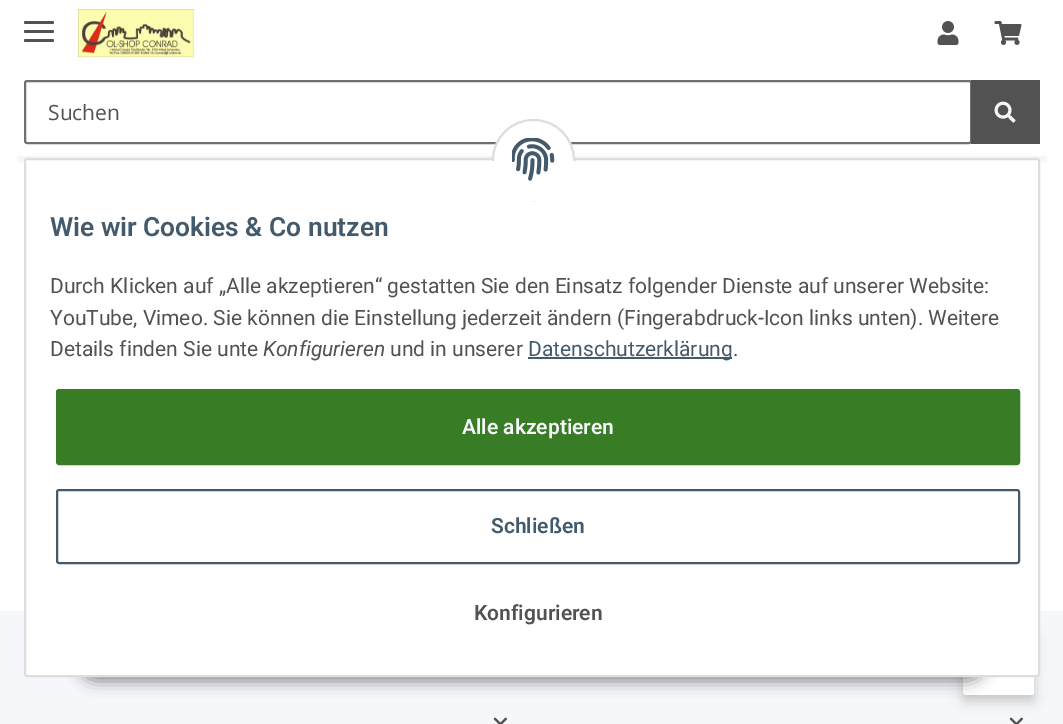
%!PS
<< /PageSize [1063 724] /PageUsesTransparency true >> setpagedevice
/rgb { 3 { 255 div 3 1 roll } repeat setrgbcolor } def
/font { [ exch dup neg 0 0 3 -1 roll 0 0 ] selectfont } def
/alpha { dup .setfillconstantalpha .setstrokeconstantalpha } def
/roundrect { 5 dict begin { /r /h /w /y /x } { exch def } forall
  x r add y moveto x w add y 2 copy h add r arct x w add y h add x 1 index r arct
  x y h add x y r arct x y 2 copy exch w add exch r arct closepath end } def
/shadow { 12 dict begin { /a /b /q /h /w /y /x } { exch def } forall gsave /was 0 def
  9 -2 -9 { dup b mul 4 div /e exch def 1 sub .425 mul 2.718 exch exp 1 add a .99 .min exch div /now exch def
    1 1 now sub 1 was sub div sub alpha /was now def
    w h .min e 2 mul add 0 gt { x e sub y e sub w e 2 mul add h e 2 mul add
      q e add b .6 mul add w h .min 2 div e add .min 0 .max roundrect fill } if } for grestore end } def
/picture { 5 dict begin { /h /w /y /x /name } { exch def } forall
  gsave x y translate w h scale
  w h 8 [w 0 0 h 0 0] name (r) file false 3 colorimage grestore end } def
0 .pushpdf14devicefilter
0 724 translate 1 -1 scale
4 setmiterlimit
245 247 250 rgb
0 0 1063 724 rectfill
255 255 255 rgb
0 0 1063 611 rectfill
gsave
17 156 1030 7 rectclip
0 0 0 rgb
18 42 1028 120 0 7 0.06 shadow
grestore
82 82 82 rgb
24 30 30 3 1.5 roundrect fill
24 21 30 3 1.5 roundrect fill
24 39 30 3 1.5 roundrect fill
(img/1.rgb) 78 9 116 49 picture
(img/2.rgb) 937 21 22 24 picture
(img/3.rgb) 994 21 28 24 picture
112 112 112 rgb
2 setlinewidth
25 81 946 62 2 roundrect stroke
82 82 82 rgb
971 80 69 64 rectfill
(img/4.rgb) 994 101 22 22 picture
(img/6.rgb) 1009 717 14 7 picture
0 0 0 rgb
963 635 71 66 3 6 0.2 shadow
255 255 255 rgb
963 629 71 66 3 roundrect fill
0 0 0 rgb
77 633 910 48 24 7.5 0.45 shadow
255 255 255 rgb
25 159 1014 517 2 roundrect gsave fill grestore
221 221 221 rgb
stroke
255 255 255 rgb
493 120 81 80 40 roundrect gsave fill grestore
221 221 221 rgb
stroke
255 255 255 rgb
492 161 83 40 rectfill
(img/5.rgb) 512 138 43 43 picture
67 90 107 rgb
528 357 204 2 rectfill
57 124 38 rgb
57 390 962 74 2 roundrect gsave fill grestore
stroke
67 90 107 rgb
57 490 962 73 2 roundrect stroke
(img/6.rgb) 493 717 14 7 picture
/OpenSans-Regular 21 font
82 82 82 rgb
48 120 moveto (Suchen) show
/Roboto-SemiBold 26.4 font
67 90 107 rgb
50 236 moveto (Wie wir Cookies & Co nutzen) show
/Roboto-Regular 21 font
82 82 82 rgb
[
  [(Durch Klicken auf „Alle akzeptieren“ gestatten Sie den Einsatz folgender Dienste auf unserer Website:) 50 293]
  [(YouTube, Vimeo. Sie können die Einstellung jederzeit ändern \(Fingerabdruck-Icon links unten\). Weitere) 50 325]
  [(Details finden Sie unte) 50 356]
] { aload pop moveto show } forall
/Roboto-Italic 21 font
263 356 moveto (Konfigurieren) show
/Roboto-Regular 21 font
390 356 moveto (und in unserer) show
67 90 107 rgb
528 356 moveto (Datenschutzerklärung) show
82 82 82 rgb
733 356 moveto (.) show
/Roboto-SemiBold 21 font
245 247 250 rgb
462 434 moveto (Alle akzeptieren) show
67 90 107 rgb
491 533 moveto (Schließen) show
82 82 82 rgb
474 620 moveto (Konfigurieren) show
.poppdf14devicefilter showpage
